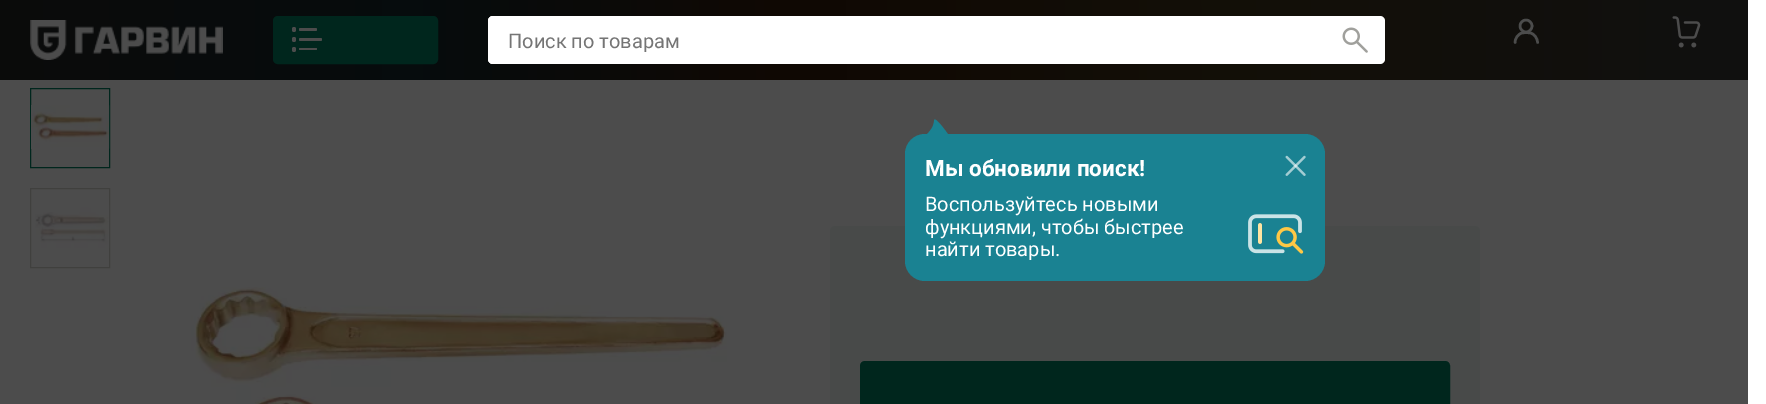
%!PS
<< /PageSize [1766 404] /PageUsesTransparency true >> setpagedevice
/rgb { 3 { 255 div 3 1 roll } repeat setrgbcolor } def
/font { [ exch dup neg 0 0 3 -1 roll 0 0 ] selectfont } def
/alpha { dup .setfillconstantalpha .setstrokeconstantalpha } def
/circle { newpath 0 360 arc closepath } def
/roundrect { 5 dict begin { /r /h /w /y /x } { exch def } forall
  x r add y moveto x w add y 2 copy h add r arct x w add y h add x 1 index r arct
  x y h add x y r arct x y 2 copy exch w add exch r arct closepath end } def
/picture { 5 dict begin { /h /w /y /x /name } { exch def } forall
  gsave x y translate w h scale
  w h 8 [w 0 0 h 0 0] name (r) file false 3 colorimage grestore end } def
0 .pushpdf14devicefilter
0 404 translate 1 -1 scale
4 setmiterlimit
255 255 255 rgb
0 0 1766 404 rectfill
gsave 0 0 moveto 1748 0 lineto 1748 80 lineto 0 80 lineto closepath clip newpath
<< /ShadingType 2 /ColorSpace /DeviceRGB /Coords [1748 35 -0.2 45] /Extend [true true] /Function << /FunctionType 3 /Domain [0 1] /Functions [<< /FunctionType 2 /Domain [0 1] /C0 [0.212 0.212 0.208] /C1 [0.251 0.196 0.067] /N 1 >> << /FunctionType 2 /Domain [0 1] /C0 [0.251 0.196 0.067] /C1 [0.2 0.075 0] /N 1 >> << /FunctionType 2 /Domain [0 1] /C0 [0.2 0.075 0] /C1 [0.043 0.137 0.157] /N 1 >> << /FunctionType 2 /Domain [0 1] /C0 [0.043 0.137 0.157] /C1 [0.122 0.122 0.122] /N 1 >>] /Bounds [0.3 0.55 0.76] /Encode [0 1 0 1 0 1 0 1] >> >> shfill grestore
0.2 alpha
54 54 53 rgb
0 0 1552 80 rectfill
1 alpha
(img/1.rgb) 30 20 193 40 picture
0 128 98 rgb
274.5 17.5 162 45 3.5 roundrect gsave fill grestore
3 setlinewidth
stroke
255 255 255 rgb
299 28 18 3 1.5 roundrect fill
292 27 4 5 2 roundrect fill
292 37 4 5 2 roundrect fill
292 47 4 5 2 roundrect fill
299 38 23 3 1.5 roundrect fill
299 48 18 2 1 roundrect fill
2.5 setlinewidth
1 setlinecap
1537.5 42.5 moveto 1537.5 38.5 1534.5 34 1530.5 33 curveto 1526 32.5 lineto 1522 33 lineto 1518 34 1515 38.5 1515 42.5 curveto stroke
0 setlinecap
1526 26 6 circle stroke
(img/3.rgb) 1672 16 29 32 picture
0 128 98 rgb
1 setlinewidth
30.5 88.5 79 79 rectstroke
(img/4.rgb) 31 105 79 44 picture
214 214 209 rgb
30.5 188.5 79 79 rectstroke
(img/5.rgb) 35 205 75 43 picture
(img/6.rgb) 191 287 536 117 picture
241 249 246 rgb
830 226 650 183 5 roundrect fill
0 128 98 rgb
861.5 362.5 587 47 3.5 roundrect gsave fill grestore
3 setlinewidth
stroke
0.7 alpha
0 0 0 rgb
0 0 1748 404 rectfill
1 alpha
255 255 255 rgb
488 16 897 48 5 roundrect fill
488 16 817 48 5 roundrect fill
(img/2.rgb) 1342 27 26 26 picture
26 130 146 rgb
905 134 420 147 20 roundrect fill
934 121 moveto 934 128.5 926 135 926 135 curveto 948.5 135 lineto 948.5 135 934 114 934 121 curveto closepath fill
(img/7.rgb) 1285 155 21 21 picture
(img/8.rgb) 1248 214 56 40 picture
/Roboto-Regular 20 font
117 117 117 rgb
508 48 moveto (Поиск по товарам) show
/Roboto-Bold 22.5 font
255 255 255 rgb
925 176 moveto (Мы обновили поиск!) show
/Roboto-Regular 20 font
[
  [(Воспользуйтесь новыми) 925 211]
  [(функциями, чтобы быстрее) 925 234]
  [(найти товары.) 925 256]
] { aload pop moveto show } forall
.poppdf14devicefilter showpage
